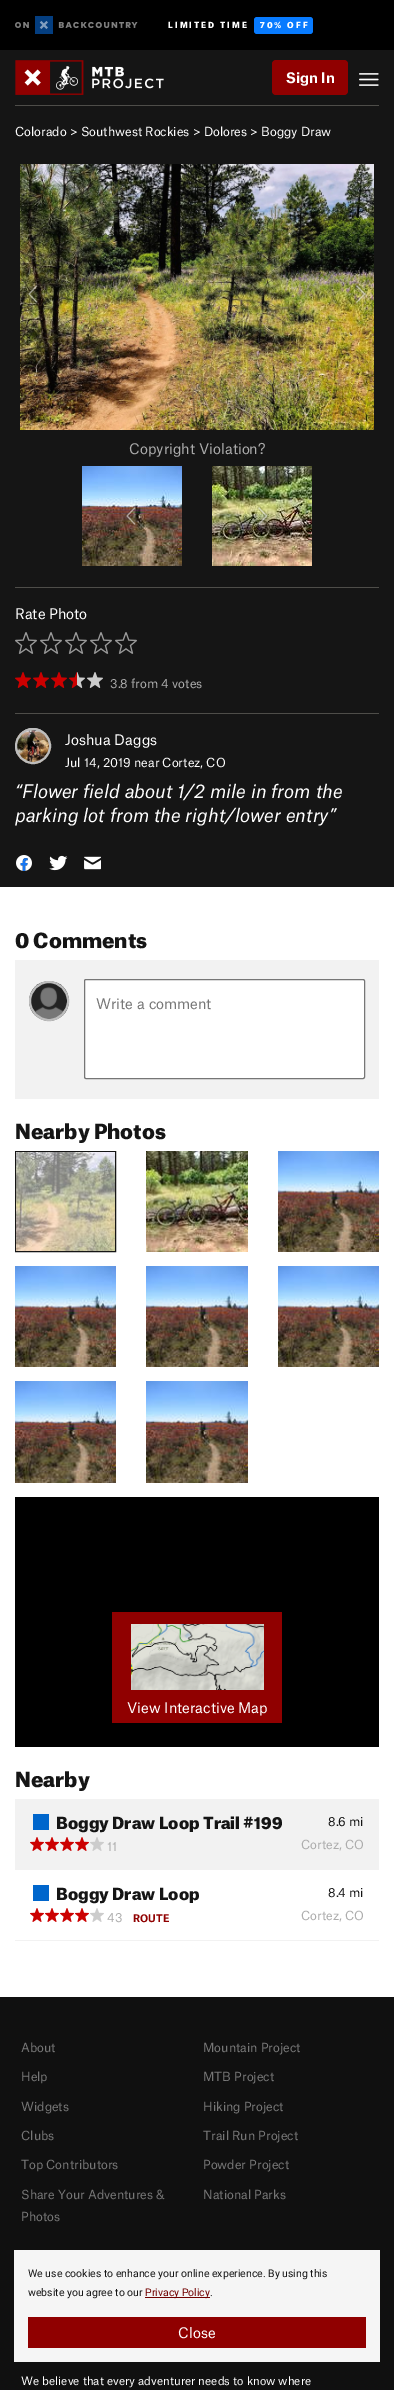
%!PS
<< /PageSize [394 2390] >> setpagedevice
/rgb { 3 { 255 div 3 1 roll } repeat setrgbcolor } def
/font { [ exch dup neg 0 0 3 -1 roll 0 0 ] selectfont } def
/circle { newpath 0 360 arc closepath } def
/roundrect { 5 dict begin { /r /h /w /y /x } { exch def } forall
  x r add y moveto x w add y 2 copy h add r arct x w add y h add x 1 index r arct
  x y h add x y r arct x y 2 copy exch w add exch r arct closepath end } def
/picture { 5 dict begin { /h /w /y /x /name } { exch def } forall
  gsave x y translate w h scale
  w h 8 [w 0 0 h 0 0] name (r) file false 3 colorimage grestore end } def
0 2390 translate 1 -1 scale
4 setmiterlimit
255 255 255 rgb
0 0 394 2390 rectfill
21 21 21 rgb
0 50 394 837 rectfill
0 0 0 rgb
0 0 394 50 rectfill
(img/1.rgb) 15 16 123 18 picture
8 123 255 rgb
254 17 59 17 3 roundrect fill
(img/2.rgb) 15 60 149 35 picture
144 0 0 rgb
272 60 76 35 4 roundrect fill
(img/3.rgb) 359 73 20 13 picture
78 77 73 rgb
15 105 364 1 rectfill
(img/4.rgb) 20 164 354 266 picture
(img/5.rgb) 27 284 11 20 picture
(img/6.rgb) 355 284 12 20 picture
(img/7.rgb) 82 466 100 100 picture
(img/8.rgb) 125 506 11 20 picture
(img/9.rgb) 212 466 100 100 picture
(img/10.rgb) 257 506 12 20 picture
15 587 364 1 rectfill
(img/11.rgb) 15 632 22 22 picture
(img/11.rgb) 40 632 22 22 picture
(img/11.rgb) 65 632 22 22 picture
(img/11.rgb) 90 632 22 22 picture
(img/11.rgb) 115 632 22 22 picture
(img/12.rgb) 15 672 16 16 picture
(img/12.rgb) 33 672 16 16 picture
(img/12.rgb) 51 672 16 16 picture
(img/13.rgb) 69 672 16 16 picture
(img/14.rgb) 87 672 16 16 picture
15 713 364 1 rectfill
(img/15.rgb) 15 728 36 36 picture
189 189 189 rgb
2 setlinewidth
33 746 17 circle stroke
(img/16.rgb) 16 855 16 16 picture
(img/17.rgb) 49 855 19 16 picture
(img/18.rgb) 84 856 17 14 picture
242 242 242 rgb
15 960 364 139 rectfill
(img/19.rgb) 29 981 40 40 picture
189 189 189 rgb
49 1001 19 circle stroke
255 255 255 rgb
84.5 979.5 280 99 1.5 roundrect gsave fill grestore
118 118 118 rgb
1 setlinewidth
stroke
21 21 21 rgb
15.5 1151.5 100 100 rectstroke
(img/20.rgb) 16 1152 99 99 picture
(img/21.rgb) 146 1151 102 101 picture
(img/22.rgb) 278 1151 101 101 picture
(img/23.rgb) 15 1266 101 101 picture
(img/24.rgb) 146 1266 102 101 picture
(img/22.rgb) 278 1266 101 101 picture
(img/25.rgb) 15 1381 101 102 picture
(img/26.rgb) 146 1381 102 102 picture
0 0 0 rgb
15 1497 364 250 rectfill
144 0 0 rgb
112 1612 170 111 rectfill
(img/27.rgb) 131 1624 133 66 picture
[
  [15 1940 364 1 242 242 242]
  [15 1799 364 71 242 242 242]
  [33 1814 16 16 0 102 204]
] { aload pop rgb rectfill } forall
(img/28.rgb) 30 1837 14 14 picture
(img/28.rgb) 45 1837 14 14 picture
(img/28.rgb) 60 1837 14 14 picture
(img/28.rgb) 75 1837 14 14 picture
(img/29.rgb) 90 1837 14 14 picture
33 1885 16 16 rectfill
(img/30.rgb) 30 1908 14 14 picture
(img/30.rgb) 45 1908 14 14 picture
(img/30.rgb) 60 1908 14 14 picture
(img/30.rgb) 75 1908 14 14 picture
(img/31.rgb) 90 1908 14 14 picture
[
  [0 1997 394 393 16 16 16]
  [14 2250 366 112 245 245 245]
  [145 2297 65 1 113 1 0]
  [28 2317 338 31 144 0 0]
] { aload pop rgb rectfill } forall
/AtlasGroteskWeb-Black 8 font
255 255 255 rgb
168 28 moveto 2 0 (LIMITED TIME) ashow
260 28 moveto 2 0 (70% OFF) ashow
/AtlasGroteskWeb-Bold 14 font
286 83 moveto (Sign In) show
/AtlasGroteskWeb-Regular 12 font
15 136 moveto (Colorado > Southwest Rockies > Dolores > Boggy Draw) show
/AtlasGroteskWeb-Regular 14 font
172 172 172 rgb
129 454 moveto (Copyright Violation?) show
255 255 255 rgb
15 619 moveto (Rate Photo) show
/AtlasGroteskWeb-Regular 12 font
172 172 172 rgb
110 688 moveto (3.8 from 4 votes) show
/AtlasGroteskWeb-Regular 14 font
255 255 255 rgb
65 745 moveto (Joshua Daggs) show
/AtlasGroteskWeb-Regular 12 font
65 767 moveto (Jul 14, 2019 near Cortez, CO) show
/AtlasGroteskWeb-Italic 18 font
15 798 moveto (“Flower field about 1/2 mile in from the) show
15 822 moveto (parking lot from the right/lower entry”) show
/AtlasGroteskWeb-Black 20 font
21 21 21 rgb
15 948 moveto (0 Comments) show
/AtlasGroteskWeb-Regular 14 font
119 119 119 rgb
96 1009 moveto (Write a comment) show
/AtlasGroteskWeb-Black 20 font
21 21 21 rgb
15 1139 moveto (Nearby Photos) show
/AtlasGroteskWeb-Regular 14 font
255 255 255 rgb
127 1713 moveto (View Interactive Map) show
/AtlasGroteskWeb-Black 20 font
21 21 21 rgb
15 1787 moveto (Nearby) show
/AtlasGroteskWeb-Black 16 font
56 1829 moveto (Boggy Draw Loop Trail #199) show
/AtlasGroteskWeb-Regular 12 font
328 1826 moveto (8.6) show
349 1826 moveto (mi) show
172 172 172 rgb
107 1851 moveto (11) show
301 1849 moveto (Cortez, CO) show
/AtlasGroteskWeb-Black 16 font
21 21 21 rgb
56 1900 moveto (Boggy Draw Loop) show
/AtlasGroteskWeb-Regular 12 font
328 1897 moveto (8.4) show
349 1897 moveto (mi) show
172 172 172 rgb
107 1922 moveto (43) show
/AtlasGroteskWeb-Bold 10 font
144 0 0 rgb
133 1922 moveto (ROUTE) show
/AtlasGroteskWeb-Regular 12 font
172 172 172 rgb
301 1920 moveto (Cortez, CO) show
119 119 119 rgb
[
  [(About) 21 2052]
  [(Mountain Project) 203 2052]
  [(Help) 21 2081]
  [(MTB Project) 203 2081]
  [(Widgets) 21 2111]
  [(Hiking Project) 203 2111]
  [(Clubs) 21 2140]
  [(Trail Run Project) 203 2140]
  [(Top Contributors) 21 2169]
  [(Powder Project) 203 2169]
  [(Share Your Adventures &) 21 2199]
  [(Photos) 21 2221]
  [(National Parks) 203 2199]
] { aload pop moveto show } forall
/AtlasGroteskWeb-Regular 11.2 font
255 255 255 rgb
21 2385 moveto (We believe that every adventurer needs to know where) show
/Roboto-Regular 10.5 font
21 21 21 rgb
28 2277 moveto (We use cookies to enhance your online experience. By using this) show
28 2296 moveto (website you agree to our) show
113 1 0 rgb
145 2296 moveto (Privacy Policy) show
21 21 21 rgb
210 2296 moveto (.) show
/AtlasGroteskWeb-Regular 14 font
255 255 255 rgb
178 2338 moveto (Close) show
showpage
